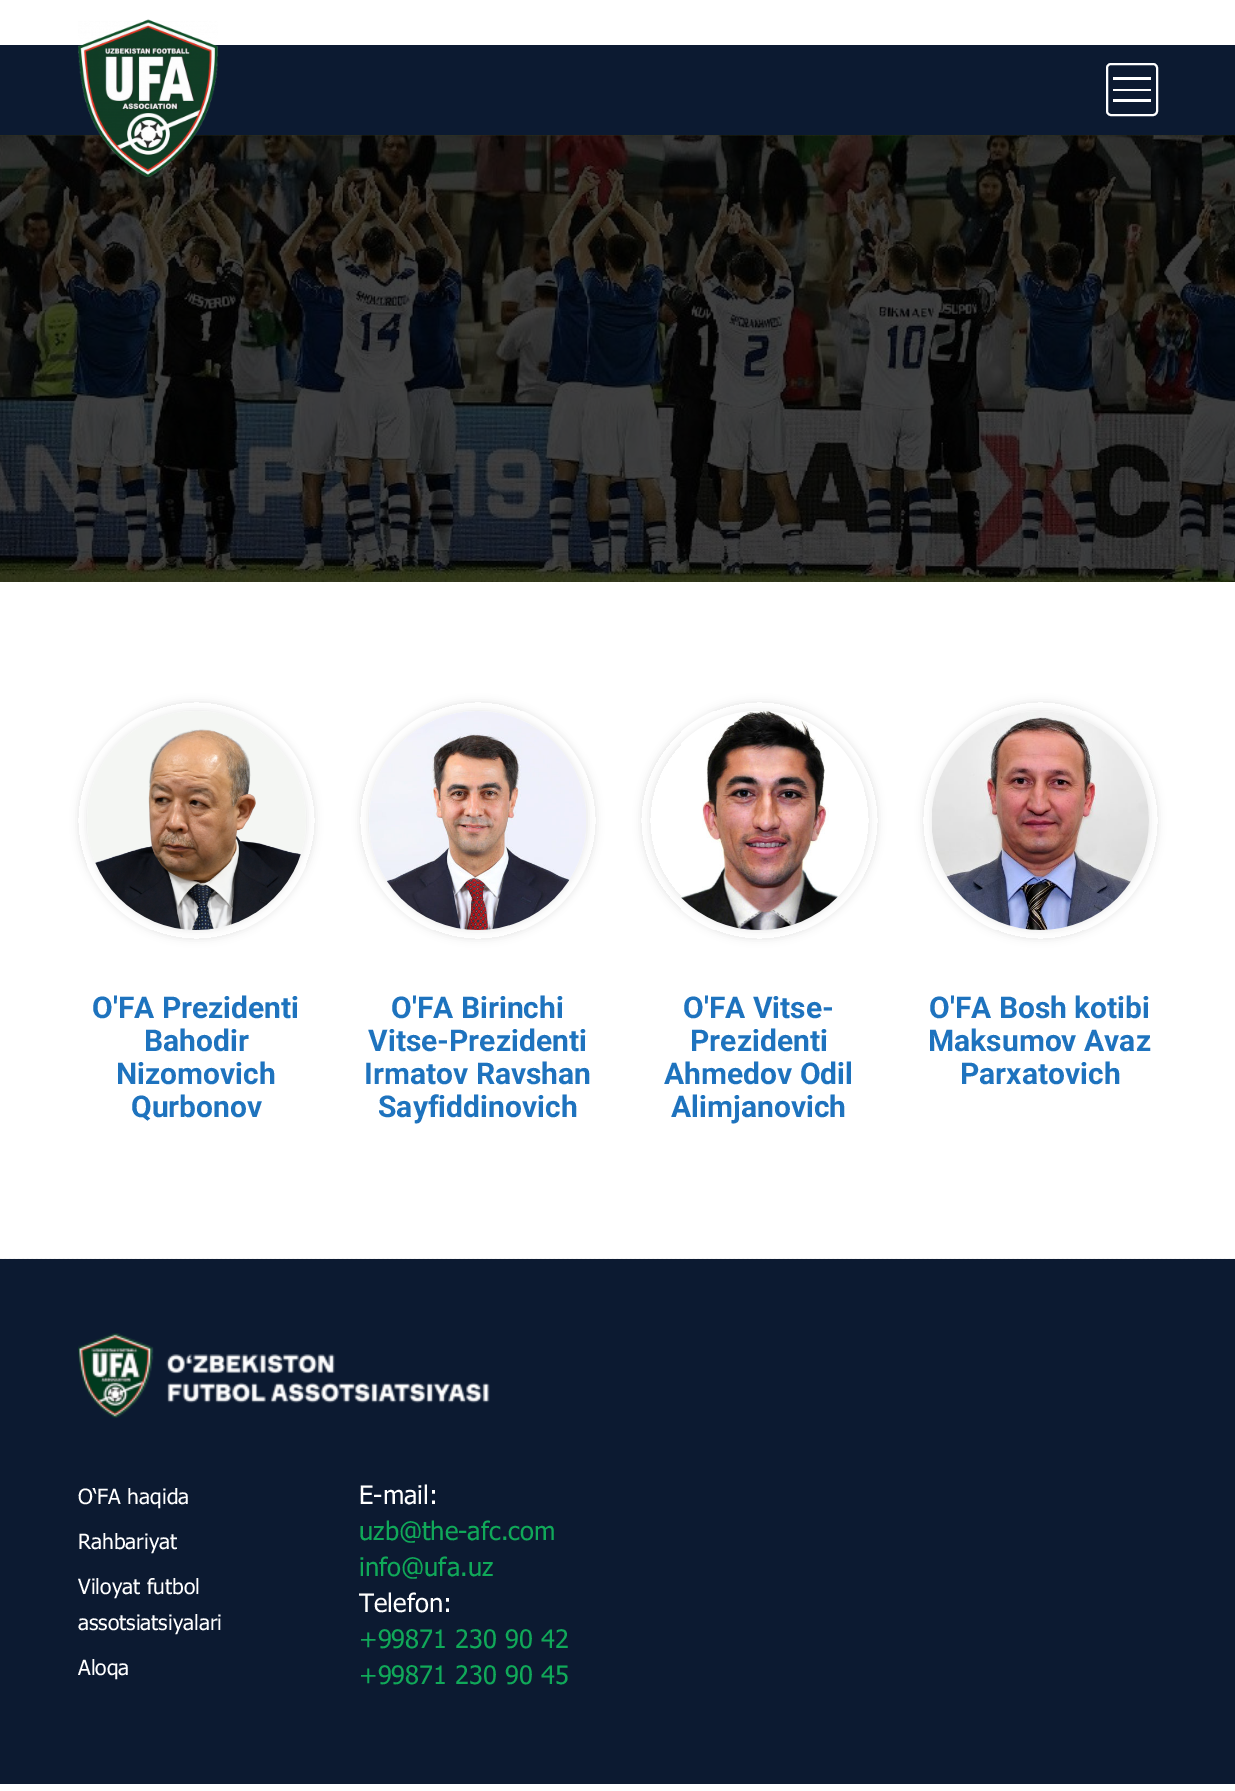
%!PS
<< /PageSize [1235 1791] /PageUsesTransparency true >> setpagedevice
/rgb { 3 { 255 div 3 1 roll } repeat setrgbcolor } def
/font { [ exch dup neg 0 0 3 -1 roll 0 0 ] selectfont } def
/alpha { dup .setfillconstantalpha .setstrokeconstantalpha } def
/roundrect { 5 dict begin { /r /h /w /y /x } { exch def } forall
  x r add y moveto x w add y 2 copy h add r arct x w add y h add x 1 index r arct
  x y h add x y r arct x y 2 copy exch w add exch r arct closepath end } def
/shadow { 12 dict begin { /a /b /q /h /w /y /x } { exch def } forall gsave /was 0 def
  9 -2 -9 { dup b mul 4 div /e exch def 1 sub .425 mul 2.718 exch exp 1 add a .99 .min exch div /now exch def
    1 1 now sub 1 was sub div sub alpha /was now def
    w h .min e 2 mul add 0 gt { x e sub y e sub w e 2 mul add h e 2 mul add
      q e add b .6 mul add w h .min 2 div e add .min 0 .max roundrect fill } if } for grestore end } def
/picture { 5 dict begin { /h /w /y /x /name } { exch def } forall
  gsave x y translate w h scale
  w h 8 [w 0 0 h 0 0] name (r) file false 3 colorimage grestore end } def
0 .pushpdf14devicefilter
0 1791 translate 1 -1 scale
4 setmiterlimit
255 255 255 rgb
0 0 1235 1791 rectfill
12 26 49 rgb
0 45 1235 90 rectfill
(img/2.rgb) 0 135 1235 447 picture
(img/1.rgb) 78 19 140 158 picture
255 255 255 rgb
2 setlinewidth
1107 64 50 51 4 roundrect stroke
[
  [1113 77 38 3 255 255 255]
  [1113 89 38 2 255 255 255]
  [1113 99 38 3 255 255 255]
] { aload pop rgb rectfill } forall
gsave
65 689 moveto 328 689 lineto 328 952 lineto 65 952 lineto closepath 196.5 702 moveto 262 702 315 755 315 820.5 curveto 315 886 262 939 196.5 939 curveto 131 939 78 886 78 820.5 curveto 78 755 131 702 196.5 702 curveto closepath eoclip newpath
0 0 0 rgb
78 702 237 237 118.5 4 0.1 shadow
grestore
0 0 0 rgb
87 711 219 219 109.5 4 0.1 shadow
(img/3.rgb) 87 711 219 219 picture
gsave
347 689 moveto 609 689 lineto 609 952 lineto 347 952 lineto closepath 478 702 moveto 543 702 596 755 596 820 curveto 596 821 lineto 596 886 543 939 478 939 curveto 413 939 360 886 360 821 curveto 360 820 lineto 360 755 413 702 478 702 curveto closepath eoclip newpath
360 702 236 237 118 4 0.1 shadow
grestore
369 711 218 219 109 4 0.1 shadow
(img/4.rgb) 369 711 217 219 picture
gsave
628 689 moveto 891 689 lineto 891 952 lineto 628 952 lineto closepath 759.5 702 moveto 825 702 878 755 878 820.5 curveto 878 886 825 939 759.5 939 curveto 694 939 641 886 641 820.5 curveto 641 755 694 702 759.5 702 curveto closepath eoclip newpath
641 702 237 237 118.5 4 0.1 shadow
grestore
gsave
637 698 moveto 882 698 lineto 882 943 lineto 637 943 lineto closepath 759.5 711 moveto 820 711 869 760 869 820.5 curveto 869 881 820 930 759.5 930 curveto 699 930 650 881 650 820.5 curveto 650 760 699 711 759.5 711 curveto closepath eoclip newpath
650 711 219 219 109.5 4 0.1 shadow
grestore
(img/5.rgb) 681 711 183 219 picture
gsave
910 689 moveto 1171 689 lineto 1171 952 lineto 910 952 lineto closepath 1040.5 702 moveto 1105.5 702 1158 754.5 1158 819.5 curveto 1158 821.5 lineto 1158 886.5 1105.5 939 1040.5 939 curveto 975.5 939 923 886.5 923 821.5 curveto 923 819.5 lineto 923 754.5 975.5 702 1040.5 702 curveto closepath eoclip newpath
923 702 235 237 117.5 4 0.1 shadow
grestore
932 711 217 219 108.5 4 0.1 shadow
(img/6.rgb) 931 711 218 219 picture
(img/7.rgb) 0 1258 1235 1 picture
12 26 49 rgb
0 1259 1235 525 rectfill
(img/8.rgb) 78 1333 412 85 picture
/Roboto-Bold 30 font
30 115 190 rgb
[
  [(O'FA Prezidenti) 92 1018]
  [(Bahodir) 144 1051]
  [(Nizomovich) 116 1084]
  [(Qurbonov) 131 1117]
  [(O'FA Birinchi) 391 1018]
  [(Vitse-Prezidenti) 368 1051]
  [(Irmatov Ravshan) 364 1084]
  [(Sayfiddinovich) 378 1117]
  [(O'FA Vitse-) 683 1018]
  [(Prezidenti) 690 1051]
  [(Ahmedov Odil) 664 1084]
  [(Alimjanovich) 671 1117]
  [(O'FA Bosh kotibi) 929 1018]
  [(Maksumov Avaz) 928 1051]
  [(Parxatovich) 960 1084]
] { aload pop moveto show } forall
/Tahoma-Regular 21 font
255 255 255 rgb
[
  [(O‘FA haqida) 78 1504]
  [(Rahbariyat) 78 1549]
  [(Viloyat futbol) 78 1594]
  [(assotsiatsiyalari) 78 1630]
  [(Aloqa) 78 1675]
] { aload pop moveto show } forall
/Tahoma-Regular 25.5 font
359 1504 moveto (E-mail:) show
16 169 89 rgb
359 1540 moveto (uzb@the-afc.com) show
359 1576 moveto (info@ufa.uz) show
255 255 255 rgb
359 1612 moveto (Telefon:) show
16 169 89 rgb
359 1648 moveto (+99871 230 90 42) show
359 1684 moveto (+99871 230 90 45) show
.poppdf14devicefilter showpage
